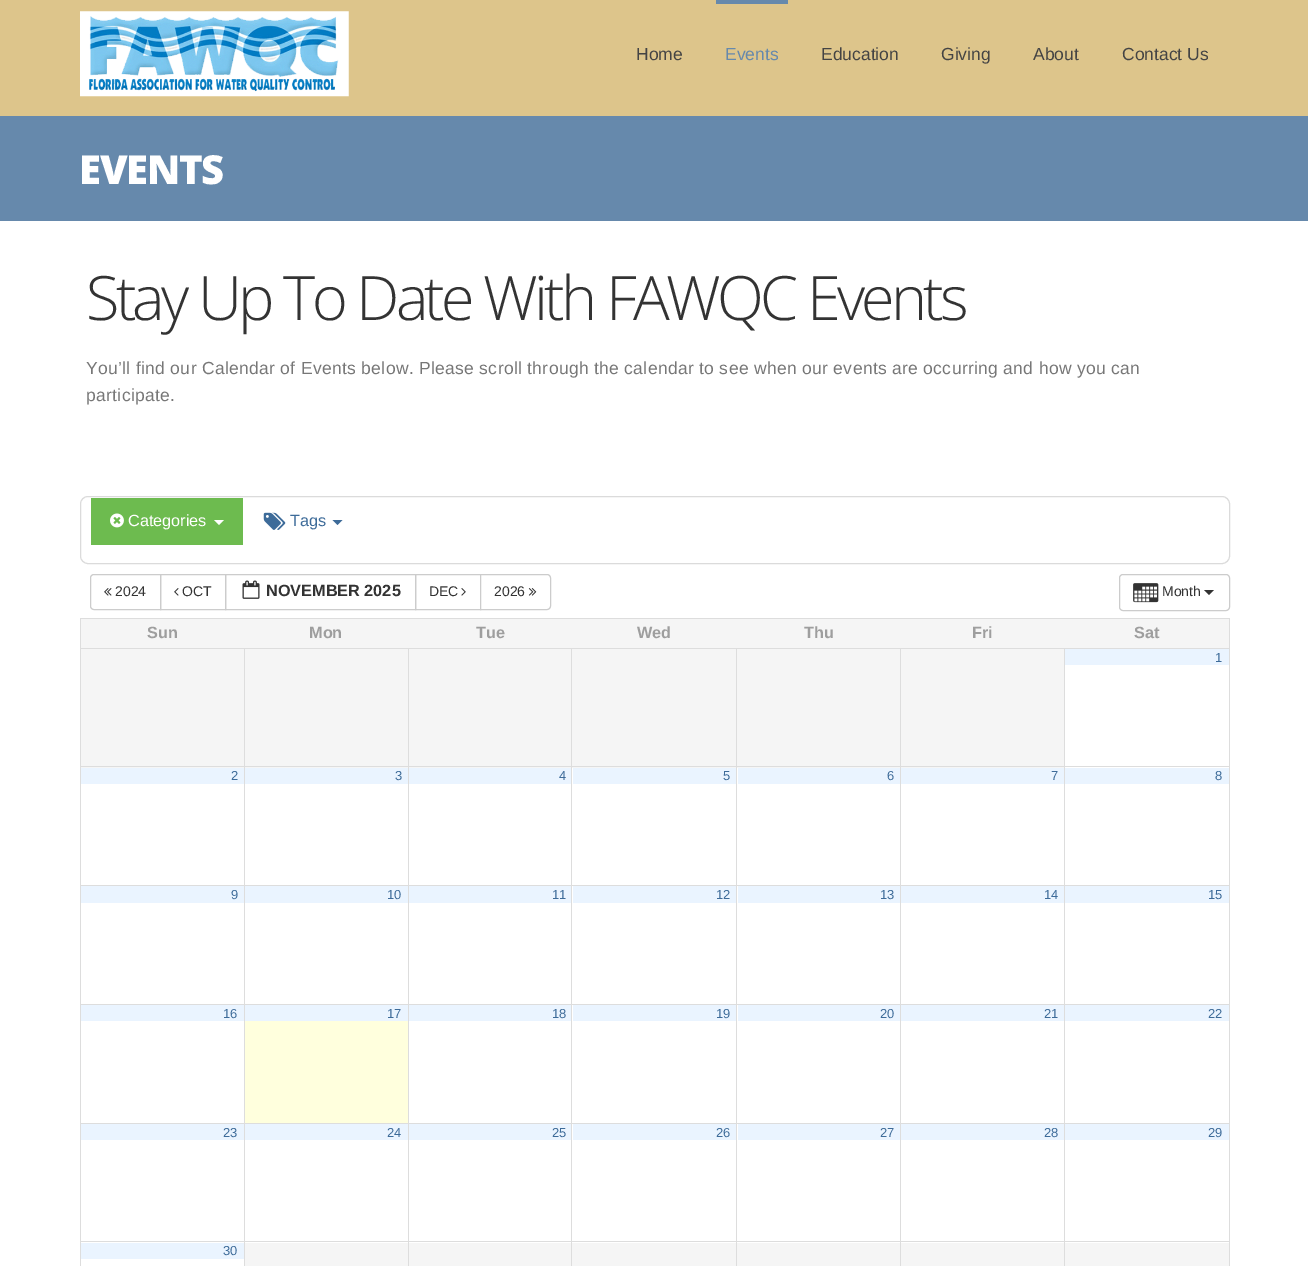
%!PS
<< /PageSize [1308 1266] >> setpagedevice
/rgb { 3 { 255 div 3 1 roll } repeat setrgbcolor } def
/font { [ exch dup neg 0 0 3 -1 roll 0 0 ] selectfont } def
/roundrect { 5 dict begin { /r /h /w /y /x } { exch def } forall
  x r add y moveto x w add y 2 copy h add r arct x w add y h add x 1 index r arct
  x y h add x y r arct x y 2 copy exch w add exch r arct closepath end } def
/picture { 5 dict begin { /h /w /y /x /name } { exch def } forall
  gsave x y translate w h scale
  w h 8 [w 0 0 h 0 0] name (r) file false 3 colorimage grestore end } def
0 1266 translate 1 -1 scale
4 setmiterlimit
255 255 255 rgb
0 0 1308 1266 rectfill
221 197 139 rgb
0 0 1308 116 rectfill
(img/1.rgb) 80 11 269 86 picture
102 137 172 rgb
716 0 72 4 rectfill
0 116 1308 105 rectfill
219 219 219 rgb
80.5 496.5 1149 67 7.5 roundrect stroke
109 187 79 rgb
91 498 152 47 rectfill
(img/2.rgb) 110 513 14 15 picture
255 255 255 rgb
214 520 moveto 224 520 lineto 219 525 lineto closepath fill
(img/3.rgb) 263 512 23 18 picture
61 107 153 rgb
332.5 520 moveto 342.5 520 lineto 337.5 525 lineto closepath fill
204 204 204 rgb
94 574.5 moveto 160.5 574.5 lineto 160.5 609.5 lineto 94 609.5 lineto 92 609.5 90.5 608 90.5 606 curveto 90.5 578 lineto 90.5 576 92 574.5 94 574.5 curveto closepath stroke
(img/4.rgb) 104 588 8 8 picture
160.5 574.5 65 35 rectstroke
(img/5.rgb) 174 588 5 8 picture
225.5 574.5 190 35 rectstroke
(img/6.rgb) 242 580 18 19 picture
415.5 574.5 65 35 rectstroke
(img/7.rgb) 461 588 5 8 picture
255 255 255 rgb
480.5 574.5 moveto 547 574.5 lineto 549 574.5 550.5 576 550.5 578 curveto 550.5 606 lineto 550.5 608 549 609.5 547 609.5 curveto 480.5 609.5 lineto closepath gsave fill grestore
204 204 204 rgb
stroke
(img/8.rgb) 528 588 9 8 picture
1119.5 574.5 110 36 3.5 roundrect stroke
(img/9.rgb) 1133 583 26 20 picture
51 51 51 rgb
1204 590 moveto 1214 590 lineto 1209 595 lineto closepath fill
[
  [80 618 1150 1 221 221 221]
  [1229 618 1 648 221 221 221]
  [80 618 1 648 221 221 221]
  [81 619 1148 29 245 245 245]
  [81 649 163 119 245 245 245]
  [1064 648 166 1 221 221 221]
  [901 649 163 119 245 245 245]
  [1064 766 166 1 221 221 221]
  [1064 885 166 1 221 221 221]
  [1064 1004 166 1 221 221 221]
  [1064 1123 166 1 221 221 221]
  [1064 1241 166 1 221 221 221]
  [1064 1241 1 25 221 221 221]
  [900 1241 165 1 221 221 221]
  [1064 1123 1 120 221 221 221]
  [900 1123 165 1 221 221 221]
  [1064 1004 1 120 221 221 221]
  [900 1004 165 1 221 221 221]
  [1064 885 1 120 221 221 221]
  [900 885 165 1 221 221 221]
  [1064 766 1 120 221 221 221]
  [900 766 165 1 221 221 221]
  [1064 648 1 120 221 221 221]
  [900 648 165 1 221 221 221]
  [737 649 163 119 245 245 245]
  [900 1241 1 25 221 221 221]
  [736 1241 165 1 221 221 221]
  [900 1123 1 120 221 221 221]
  [736 1123 165 1 221 221 221]
  [900 1004 1 120 221 221 221]
  [736 1004 165 1 221 221 221]
  [900 885 1 120 221 221 221]
  [736 885 165 1 221 221 221]
  [900 766 1 120 221 221 221]
  [736 766 165 1 221 221 221]
  [900 648 1 120 221 221 221]
  [736 648 165 1 221 221 221]
  [409 649 327 119 245 245 245]
  [736 1241 1 25 221 221 221]
  [571 1241 167 1 221 221 221]
  [736 1123 1 120 221 221 221]
  [571 1123 167 1 221 221 221]
  [736 1004 1 120 221 221 221]
  [571 1004 167 1 221 221 221]
  [736 885 1 120 221 221 221]
  [571 885 167 1 221 221 221]
  [736 766 1 120 221 221 221]
  [571 766 167 1 221 221 221]
  [736 648 1 120 221 221 221]
  [571 648 167 1 221 221 221]
  [409 1243 327 23 245 245 245]
  [571 1241 1 25 221 221 221]
  [408 1241 165 1 221 221 221]
  [571 1123 1 120 221 221 221]
  [408 1123 165 1 221 221 221]
  [571 1004 1 120 221 221 221]
  [408 1004 165 1 221 221 221]
  [571 885 1 120 221 221 221]
  [408 885 165 1 221 221 221]
  [571 766 1 120 221 221 221]
  [408 766 165 1 221 221 221]
  [571 648 1 120 221 221 221]
  [408 648 165 1 221 221 221]
  [245 649 163 119 245 245 245]
  [408 1241 1 25 221 221 221]
  [244 1241 165 1 221 221 221]
  [408 1123 1 120 221 221 221]
  [244 1123 165 1 221 221 221]
  [408 1004 1 120 221 221 221]
  [244 1004 165 1 221 221 221]
  [408 885 1 120 221 221 221]
  [244 885 165 1 221 221 221]
  [408 766 1 120 221 221 221]
  [244 766 165 1 221 221 221]
  [408 648 1 120 221 221 221]
  [244 648 165 1 221 221 221]
  [244 1241 1 25 221 221 221]
  [80 1241 165 1 221 221 221]
  [244 1123 1 120 221 221 221]
  [80 1123 165 1 221 221 221]
  [244 1004 1 120 221 221 221]
  [80 1004 165 1 221 221 221]
  [244 885 1 120 221 221 221]
  [80 885 165 1 221 221 221]
  [244 766 1 120 221 221 221]
  [80 766 165 1 221 221 221]
  [244 648 1 120 221 221 221]
  [80 648 165 1 221 221 221]
  [1065 649 164 16 234 244 255]
  [81 768 163 16 234 244 255]
  [245 768 163 16 234 244 255]
  [409 768 162 16 234 244 255]
  [573 768 163 16 234 244 255]
  [738 768 162 16 234 244 255]
  [901 768 163 16 234 244 255]
  [1065 768 164 16 234 244 255]
  [81 886 163 17 234 244 255]
  [245 886 163 17 234 244 255]
  [409 886 162 17 234 244 255]
  [573 886 163 17 234 244 255]
  [738 886 162 17 234 244 255]
  [901 886 163 17 234 244 255]
  [1065 886 164 17 234 244 255]
  [81 1005 163 16 234 244 255]
  [245 1021 163 102 255 255 221]
  [245 1005 163 16 234 244 255]
  [409 1005 162 16 234 244 255]
  [573 1005 163 16 234 244 255]
  [738 1005 162 16 234 244 255]
  [901 1005 163 16 234 244 255]
  [1065 1005 164 16 234 244 255]
  [81 1124 163 16 234 244 255]
  [245 1124 163 16 234 244 255]
  [409 1124 162 16 234 244 255]
  [573 1124 163 16 234 244 255]
  [738 1124 162 16 234 244 255]
  [901 1124 163 16 234 244 255]
  [1065 1124 164 16 234 244 255]
  [245 1243 163 23 245 245 245]
  [81 1243 163 16 234 244 255]
  [737 1243 163 23 245 245 245]
  [901 1243 163 23 245 245 245]
  [1065 1243 164 23 245 245 245]
] { aload pop rgb rectfill } forall
/LiberationSans-Regular 17.5 font
68 68 68 rgb
636 60 moveto (Home) show
102 137 172 rgb
725 60 moveto (Events) show
68 68 68 rgb
[
  [(Education) 821 60]
  [(Giving) 941 60]
  [(About) 1033 60]
  [(Contact Us) 1122 60]
] { aload pop moveto show } forall
/OpenSans-ExtraBold 40 font
255 255 255 rgb
79 184 moveto -1.25 0 (EVENTS) ashow
/OpenSans-Light 61.25 font
51 51 51 rgb
86 320 moveto -3.7 0 (Stay Up To Date With FAWQC Events) ashow
/LiberationSans-Regular 17.5 font
119 119 119 rgb
86 374 moveto 0.31 0 (You’ll find our Calendar of Events below. Please scroll through the calendar to see when our events are occurring and how you can) ashow
86 401 moveto 0.31 0 (participate.) ashow
/LiberationSans-Regular 16.25 font
255 255 255 rgb
128 526 moveto (Categories) show
61 107 153 rgb
290 526 moveto (Tags) show
/LiberationSans-Regular 14 font
51 51 51 rgb
115 596 moveto (2024) show
182 596 moveto (OCT) show
/LiberationSans-Bold 16.25 font
266 596 moveto (NOVEMBER 2025) show
/LiberationSans-Regular 14 font
[
  [(DEC) 429 596]
  [(2026) 494 596]
  [(Month) 1162 596]
] { aload pop moveto show } forall
/LiberationSans-Bold 16.25 font
158 158 158 rgb
[
  [(Sun) 147 638]
  [(Mon) 309 638]
  [(Tue) 476 638]
  [(Wed) 637 638]
  [(Thu) 804 638]
  [(Fri) 972 638]
  [(Sat) 1134 638]
] { aload pop moveto show } forall
/LiberationSans-Regular 13 font
61 107 153 rgb
[
  [(1) 1215 662]
  [(2) 231 780]
  [(3) 395 780]
  [(4) 559 780]
  [(5) 723 780]
  [(6) 887 780]
  [(7) 1051 780]
  [(8) 1215 780]
  [(9) 231 899]
  [(10) 387 899]
  [(11) 552 899]
  [(12) 716 899]
  [(13) 880 899]
  [(14) 1044 899]
  [(15) 1208 899]
  [(16) 223 1018]
  [(17) 387 1018]
  [(18) 552 1018]
  [(19) 716 1018]
  [(20) 880 1018]
  [(21) 1044 1018]
  [(22) 1208 1018]
  [(23) 223 1137]
  [(24) 387 1137]
  [(25) 552 1137]
  [(26) 716 1137]
  [(27) 880 1137]
  [(28) 1044 1137]
  [(29) 1208 1137]
  [(30) 223 1255]
] { aload pop moveto show } forall
showpage
